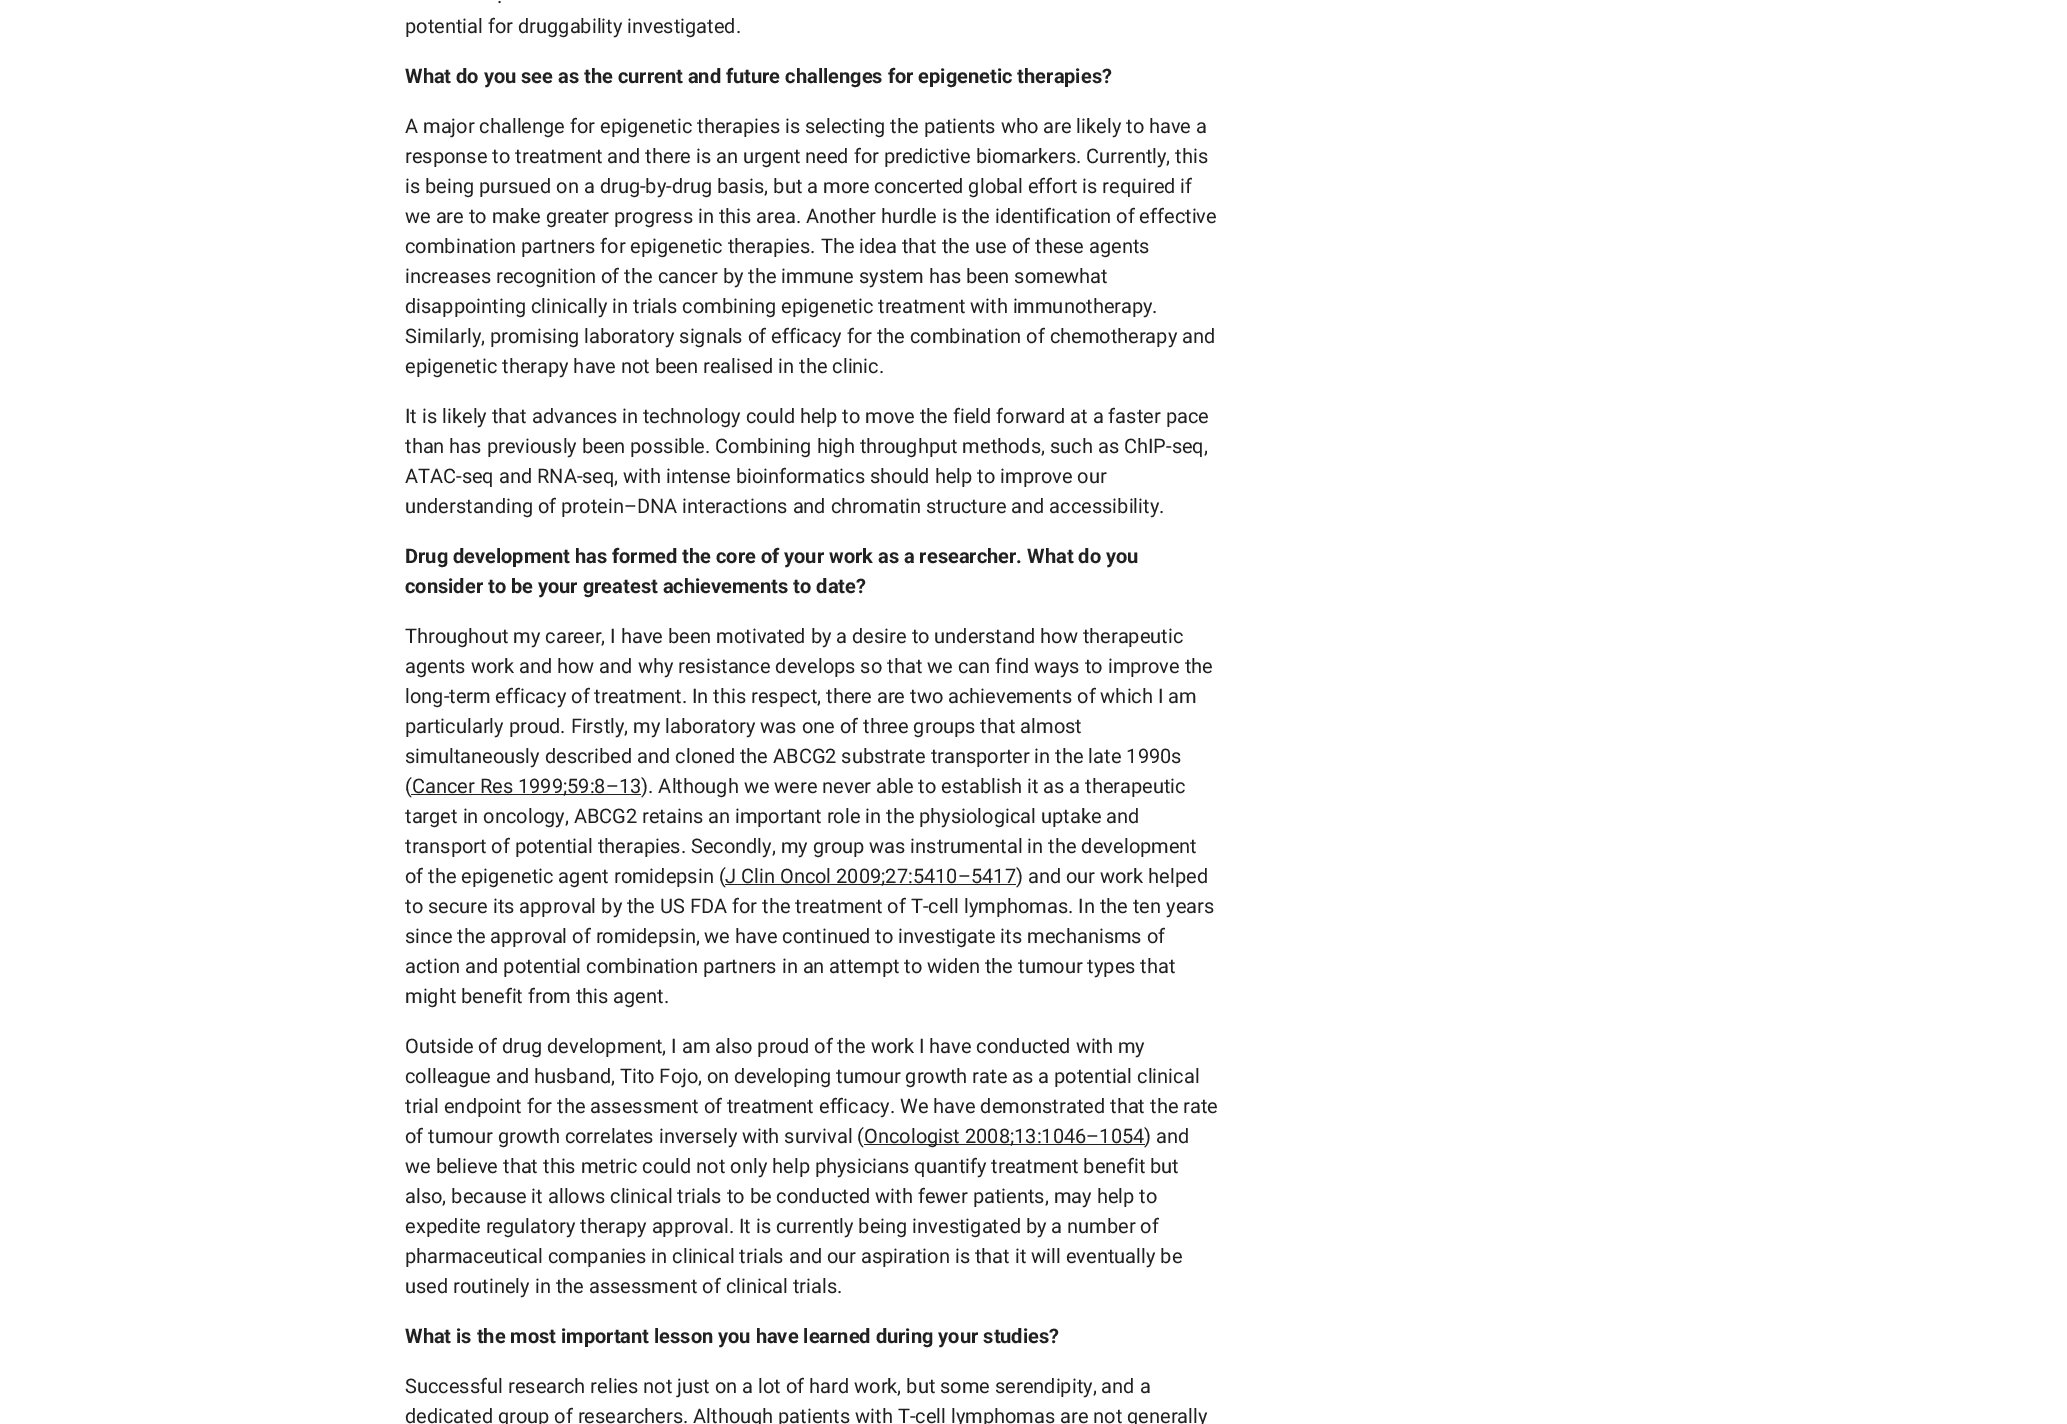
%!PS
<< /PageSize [2067 1424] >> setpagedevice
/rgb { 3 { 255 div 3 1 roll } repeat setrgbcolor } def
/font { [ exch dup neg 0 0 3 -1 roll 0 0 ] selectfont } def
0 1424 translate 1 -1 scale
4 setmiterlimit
255 255 255 rgb
0 0 2067 1424 rectfill
[
  [411 794 230 1 33 33 33]
  [725 884 291 1 33 33 33]
  [864 1144 281 1 33 33 33]
] { aload pop rgb rectfill } forall
/Roboto-Regular 20 font
497 3 moveto (.) show
405 33 moveto (potential for druggability investigated.) show
/Roboto-Bold 20 font
405 83 moveto (What do you see as the current and future challenges for epigenetic therapies?) show
/Roboto-Regular 20 font
[
  [(A major challenge for epigenetic therapies is selecting the patients who are likely to have a) 405 133]
  [(response to treatment and there is an urgent need for predictive biomarkers. Currently, this) 405 163]
  [(is being pursued on a drug-by-drug basis, but a more concerted global effort is required if) 405 193]
  [(we are to make greater progress in this area. Another hurdle is the identification of effective) 405 223]
  [(combination partners for epigenetic therapies. The idea that the use of these agents) 405 253]
  [(increases recognition of the cancer by the immune system has been somewhat) 405 283]
  [(disappointing clinically in trials combining epigenetic treatment with immunotherapy.) 405 313]
  [(Similarly, promising laboratory signals of efficacy for the combination of chemotherapy and) 405 343]
  [(epigenetic therapy have not been realised in the clinic.) 405 373]
  [(It is likely that advances in technology could help to move the field forward at a faster pace) 405 423]
  [(than has previously been possible. Combining high throughput methods, such as ChIP-seq,) 405 453]
  [(ATAC-seq and RNA-seq, with intense bioinformatics should help to improve our) 405 483]
  [(understanding of protein–DNA interactions and chromatin structure and accessibility.) 405 513]
] { aload pop moveto show } forall
/Roboto-Bold 20 font
405 563 moveto (Drug development has formed the core of your work as a researcher. What do you) show
405 593 moveto (consider to be your greatest achievements to date?) show
/Roboto-Regular 20 font
[
  [(Throughout my career, I have been motivated by a desire to understand how therapeutic) 405 643]
  [(agents work and how and why resistance develops so that we can find ways to improve the) 405 673]
  [(long-term efficacy of treatment. In this respect, there are two achievements of which I am) 405 703]
  [(particularly proud. Firstly, my laboratory was one of three groups that almost) 405 733]
  [(simultaneously described and cloned the ABCG2 substrate transporter in the late 1990s) 405 763]
  [(\() 405 793]
  [(Cancer Res 1999;59:8–13\). Although we were never able to establish it as a therapeutic) 412 793]
  [(target in oncology, ABCG2 retains an important role in the physiological uptake and) 405 823]
  [(transport of potential therapies. Secondly, my group was instrumental in the development) 405 853]
  [(of the epigenetic agent romidepsin \() 405 883]
  [(J Clin Oncol 2009;27:5410–5417\) and our work helped) 725 883]
  [(to secure its approval by the US FDA for the treatment of T-cell lymphomas. In the ten years) 405 913]
  [(since the approval of romidepsin, we have continued to investigate its mechanisms of) 405 943]
  [(action and potential combination partners in an attempt to widen the tumour types that) 405 973]
  [(might benefit from this agent.) 405 1003]
  [(Outside of drug development, I am also proud of the work I have conducted with my) 405 1053]
  [(colleague and husband, Tito Fojo, on developing tumour growth rate as a potential clinical) 405 1083]
  [(trial endpoint for the assessment of treatment efficacy. We have demonstrated that the rate) 405 1113]
  [(of tumour growth correlates inversely with survival \() 405 1143]
  [(Oncologist 2008;13:1046–1054\) and) 864 1143]
  [(we believe that this metric could not only help physicians quantify treatment benefit but) 405 1173]
  [(also, because it allows clinical trials to be conducted with fewer patients, may help to) 405 1203]
  [(expedite regulatory therapy approval. It is currently being investigated by a number of) 405 1233]
  [(pharmaceutical companies in clinical trials and our aspiration is that it will eventually be) 405 1263]
  [(used routinely in the assessment of clinical trials.) 405 1293]
] { aload pop moveto show } forall
/Roboto-Bold 20 font
405 1343 moveto (What is the most important lesson you have learned during your studies?) show
/Roboto-Regular 20 font
405 1393 moveto (Successful research relies not just on a lot of hard work, but some serendipity, and a) show
405 1423 moveto (dedicated group of researchers. Although patients with T-cell lymphomas are not generally) show
showpage
